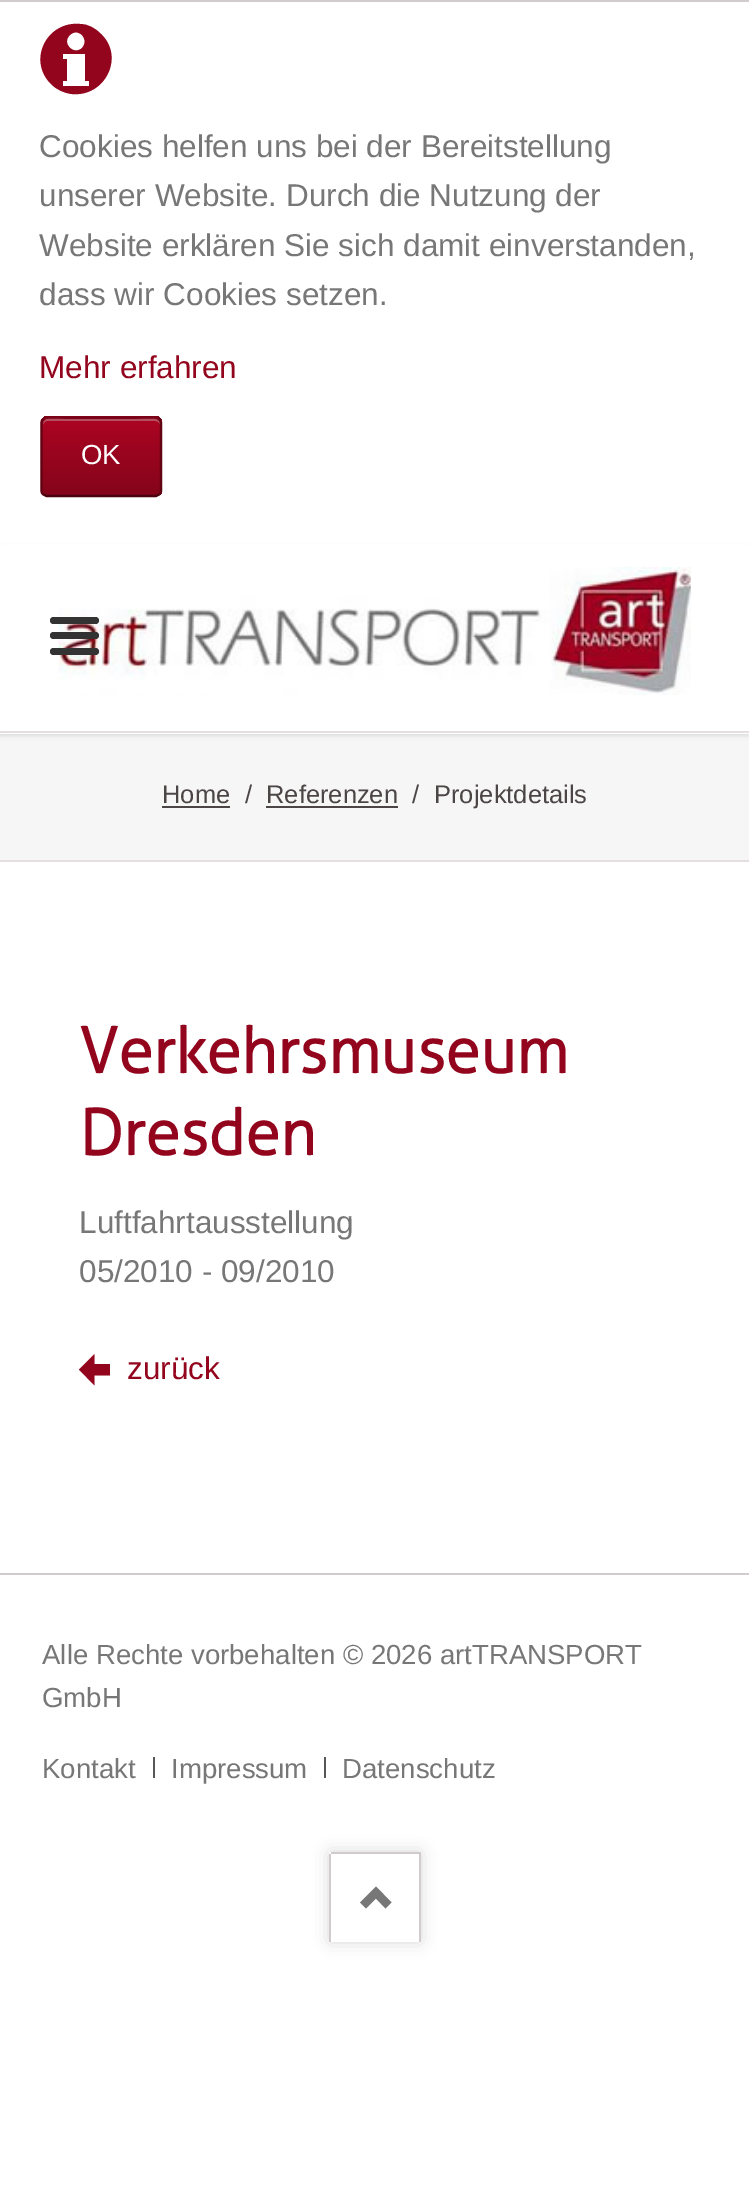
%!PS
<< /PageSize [749 2210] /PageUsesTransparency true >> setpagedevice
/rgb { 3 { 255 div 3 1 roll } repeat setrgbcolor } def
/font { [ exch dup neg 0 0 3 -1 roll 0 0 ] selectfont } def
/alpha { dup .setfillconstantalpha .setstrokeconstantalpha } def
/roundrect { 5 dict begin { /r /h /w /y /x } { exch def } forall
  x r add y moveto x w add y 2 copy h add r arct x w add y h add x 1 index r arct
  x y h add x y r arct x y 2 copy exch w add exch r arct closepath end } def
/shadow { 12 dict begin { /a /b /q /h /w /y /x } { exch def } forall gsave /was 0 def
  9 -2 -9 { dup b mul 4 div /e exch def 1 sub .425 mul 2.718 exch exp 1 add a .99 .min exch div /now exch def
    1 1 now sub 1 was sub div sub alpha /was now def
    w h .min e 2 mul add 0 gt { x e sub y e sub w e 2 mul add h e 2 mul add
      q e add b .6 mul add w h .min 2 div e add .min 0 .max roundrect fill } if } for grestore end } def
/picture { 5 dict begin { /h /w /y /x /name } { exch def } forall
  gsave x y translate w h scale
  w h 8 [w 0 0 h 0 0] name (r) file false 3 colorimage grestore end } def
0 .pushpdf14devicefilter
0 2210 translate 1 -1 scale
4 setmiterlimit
255 255 255 rgb
0 0 749 2210 rectfill
246 246 246 rgb
0 734 749 126 rectfill
0 0 0 rgb
0 547 749 189 0 2 0.1 shadow
255 255 255 rgb
4 544 741 1 rectfill
210 203 203 rgb
0 0 749 2 rectfill
147 4 29 rgb
101 34 moveto 95 28 88 24 80 24 curveto 47 21 27 60 51 84 curveto 57 90 64 93 72 94 curveto 105 97 125 57 101 34 curveto closepath 70 35 moveto 78 27 90 39 82 48 curveto 74 56 61 43 70 35 curveto closepath 89 86 moveto 63 86 lineto 63 81 lineto 67 81 lineto 67 59 lineto 63 59 lineto 63 54 lineto 85 54 lineto 85 81 lineto 89 81 lineto closepath fill
gsave
41 416 121 81 7 roundrect clip newpath
gsave 41 416 moveto 162 416 lineto 162 419 lineto 41 419 lineto closepath clip newpath
<< /ShadingType 2 /ColorSpace /DeviceRGB /Coords [101 342 101 419] /Extend [true true] /Function << /FunctionType 2 /Domain [0 1] /C0 [0.675 0.02 0.133] /C1 [0.518 0.016 0.102] /N 1 >> >> shfill grestore
gsave 41 419 moveto 162 419 lineto 162 495 lineto 41 495 lineto closepath clip newpath
<< /ShadingType 2 /ColorSpace /DeviceRGB /Coords [101 419 101 495] /Extend [true true] /Function << /FunctionType 2 /Domain [0 1] /C0 [0.675 0.02 0.133] /C1 [0.518 0.016 0.102] /N 1 >> >> shfill grestore
grestore
179 79 96 rgb
47 421 moveto 155 421 lineto 158 421 160 423 160 425 curveto 160 414 142 419 137 419 curveto 66 419 lineto 61 419 43 414 43 425 curveto 43 423 45 421 47 421 curveto closepath fill
122 3 24 rgb
2.2 setlinewidth
43.5 419 moveto 46.5 417.5 lineto 156 417.5 lineto 159 419 lineto stroke
97 3 19 rgb
159 419 moveto 160.5 420 161 421.5 161 423 curveto 161 490.5 lineto 161 492 160.5 493.5 159 494.5 curveto stroke
73 2 14 rgb
159 494.5 moveto 156 496 lineto 46.5 496 lineto 43.5 494.5 lineto stroke
97 3 19 rgb
43.5 494.5 moveto 42 493.5 41.5 492 41.5 490.5 curveto 41.5 423 lineto 41.5 421.5 42 420 43.5 419 curveto stroke
255 255 255 rgb
0 545 749 189 rectfill
229 222 222 rgb
0 731 749 2 rectfill
(img/1.rgb) 58 567 633 128 picture
51 51 51 rgb
50 648 49 7 3.5 roundrect fill
50 632 49 7 3.5 roundrect fill
50 617 49 7 3.5 roundrect fill
[
  [0 860 749 2 229 222 222]
  [162 806 68 2 76 69 69]
  [266 806 132 2 76 69 69]
] { aload pop rgb rectfill } forall
147 4 29 rgb
79 1369.5 moveto 94.5 1385.5 lineto 94.5 1375.5 lineto 110 1375.5 lineto 110 1364 lineto 94.5 1364 lineto 94.5 1354 lineto closepath fill
[
  [0 1573 749 2 210 203 203]
  [153 1757 2 21 87 87 87]
  [324 1757 2 21 87 87 87]
] { aload pop rgb rectfill } forall
0 0 0 rgb
329 1852 92 90 2 8 0.15 shadow
255 255 255 rgb
331 1852 moveto 419 1852 lineto 420 1852 421 1853 421 1854 curveto 421 1942 lineto 329 1942 lineto 329 1854 lineto 329 1853 330 1852 331 1852 curveto closepath fill
[
  [331 1852 90 2 210 203 203]
  [419 1854 2 88 210 203 203]
  [329 1854 2 88 210 203 203]
] { aload pop rgb rectfill } forall
119 119 119 rgb
360 1902.5 moveto 366 1908.5 lineto 376 1898.5 lineto 385.5 1908.5 lineto 391.5 1902.5 lineto 376 1886.5 lineto closepath fill
/LiberationSans-Regular 31.5 font
[
  [(Cookies helfen uns bei der Bereitstellung) 39 157]
  [(unserer Website. Durch die Nutzung der) 39 206]
  [(Website erklären Sie sich damit einverstanden,) 39 256]
  [(dass wir Cookies setzen.) 39 305]
] { aload pop moveto show } forall
147 4 29 rgb
39 378 moveto (Mehr erfahren) show
/LiberationSans-Regular 27.6 font
255 255 255 rgb
81 464 moveto (OK) show
/LiberationSans-Regular 25.5 font
76 69 69 rgb
[
  [(Home) 162 803]
  [(/) 245 803]
  [(Referenzen) 266 803]
  [(/) 412 803]
  [(Projektdetails) 434 803]
] { aload pop moveto show } forall
/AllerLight-Bold 63 font
147 4 29 rgb
79 1073 moveto (Verkehrsmuseum) show
79 1155 moveto (Dresden) show
/LiberationSans-Regular 31.5 font
119 119 119 rgb
79 1233 moveto (Luftfahrtausstellung) show
79 1282 moveto (05/2010 - 09/2010) show
147 4 29 rgb
127 1379 moveto (zurück) show
/LiberationSans-Regular 27.6 font
119 119 119 rgb
[
  [(Alle Rechte vorbehalten © 2026 artTRANSPORT) 42 1664]
  [(GmbH) 42 1707]
  [(Kontakt) 42 1778]
  [(Impressum) 171 1778]
  [(Datenschutz) 342 1778]
] { aload pop moveto show } forall
.poppdf14devicefilter showpage
